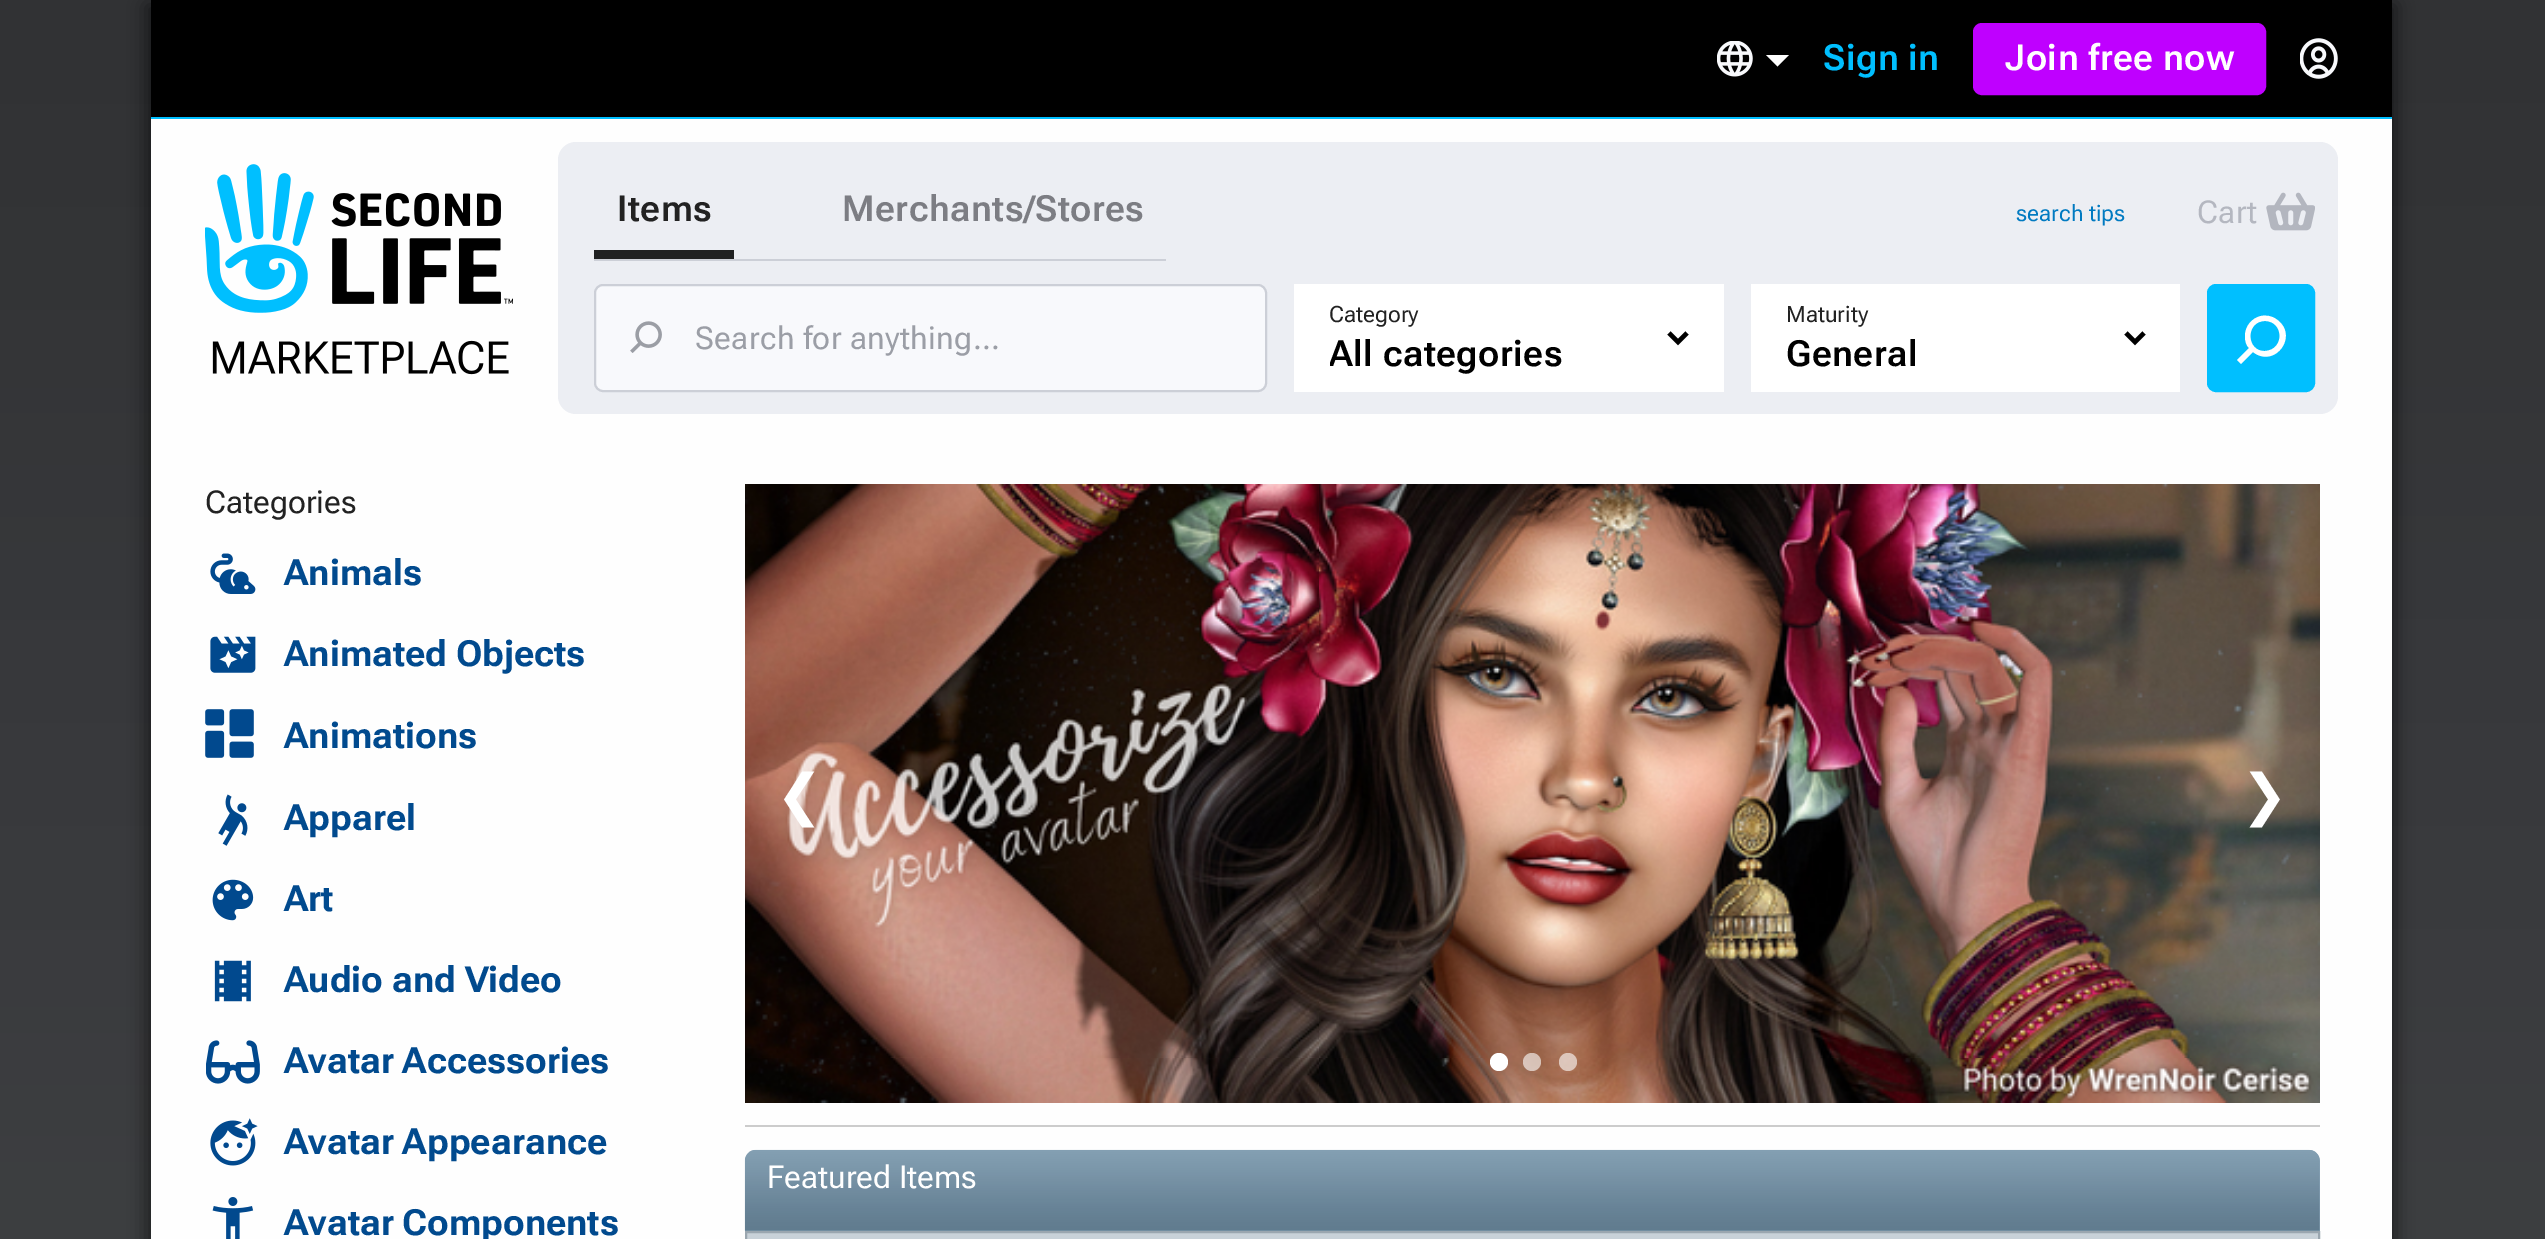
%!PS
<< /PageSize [2545 1239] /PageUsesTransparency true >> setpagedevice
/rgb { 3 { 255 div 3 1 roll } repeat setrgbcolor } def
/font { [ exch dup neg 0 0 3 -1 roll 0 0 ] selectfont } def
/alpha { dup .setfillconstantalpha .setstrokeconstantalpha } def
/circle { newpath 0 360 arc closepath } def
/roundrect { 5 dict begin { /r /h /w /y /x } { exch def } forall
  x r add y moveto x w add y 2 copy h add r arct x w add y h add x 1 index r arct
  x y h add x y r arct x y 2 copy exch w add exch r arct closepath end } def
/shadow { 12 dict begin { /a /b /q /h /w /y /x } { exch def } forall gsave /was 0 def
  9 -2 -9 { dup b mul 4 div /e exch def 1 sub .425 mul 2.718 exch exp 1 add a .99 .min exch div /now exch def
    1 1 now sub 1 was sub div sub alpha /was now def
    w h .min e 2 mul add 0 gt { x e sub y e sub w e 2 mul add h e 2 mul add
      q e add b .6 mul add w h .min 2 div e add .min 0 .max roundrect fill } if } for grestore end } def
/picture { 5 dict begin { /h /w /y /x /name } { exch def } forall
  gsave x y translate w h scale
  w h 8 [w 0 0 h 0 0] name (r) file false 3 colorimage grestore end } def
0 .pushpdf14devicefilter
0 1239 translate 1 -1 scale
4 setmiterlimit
255 255 255 rgb
0 0 2545 1239 rectfill
gsave 0 0 moveto 2545 0 lineto 2545 1239 lineto 0 1239 lineto closepath clip newpath
<< /ShadingType 2 /ColorSpace /DeviceRGB /Coords [1273 0 1274 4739] /Extend [true true] /Function << /FunctionType 2 /Domain [0 1] /C0 [0.192 0.196 0.204] /C1 [0.38 0.384 0.404] /N 1 >> >> shfill grestore
0 0 0 rgb
146 5 2250 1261 0 9 0.5 shadow
[
  [151 119 2241 1120 254 254 254]
  [151 0 2241 117 0 0 0]
  [151 117 2241 2 0 191 255]
] { aload pop rgb rectfill } forall
(img/1.rgb) 1717 41 36 36 picture
255 255 255 rgb
1766 55 moveto 1789 55 lineto 1777.5 66.5 lineto closepath fill
191 0 255 rgb
1975.5 25.5 288 67 6.5 roundrect gsave fill grestore
5 setlinewidth
stroke
(img/2.rgb) 2300 38 38 41 picture
(img/3.rgb) 205 164 308 211 picture
236 238 243 rgb
558 142 1780 272 18 roundrect fill
204 207 215 rgb
594 259 572 2 rectfill
32 33 34 rgb
594 250 140 9 rectfill
(img/4.rgb) 2266 192 49 39 picture
248 249 252 rgb
595 285 671 106 8 roundrect gsave fill grestore
204 207 215 rgb
2 setlinewidth
stroke
(img/5.rgb) 630 321 32 32 picture
255 255 255 rgb
1294 284 430 108 rectfill
0 0 0 rgb
4.5 setlinewidth
1669 333 moveto 1678 342 lineto 1687 333 lineto stroke
255 255 255 rgb
1751 284 429 108 rectfill
0 0 0 rgb
2126 333 moveto 2135 342 lineto 2144 333 lineto stroke
0 191 255 rgb
2208 285 106 106 8 roundrect gsave fill grestore
2 setlinewidth
stroke
255 255 255 rgb
2265 321 moveto 2245 321 2246 352 2265 351 curveto 2285 350 2284 321 2265 321 curveto closepath 2245 336 moveto 2245 326 2252 318 2261 316 curveto 2266 315 2272 316 2276 319 curveto 2300 335 2275 369 2253 352 curveto 2241 364 lineto 2237 360 lineto 2249 348 lineto 2246 345 2245 341 2245 336 curveto closepath eofill
(img/6.rgb) 210 553 46 41 picture
(img/7.rgb) 210 636 46 37 picture
(img/8.rgb) 205 709 49 49 picture
(img/9.rgb) 218 794 30 52 picture
(img/10.rgb) 212 879 42 42 picture
(img/11.rgb) 214 960 37 42 picture
(img/12.rgb) 206 1040 54 44 picture
(img/13.rgb) 210 1118 48 48 picture
(img/14.rgb) 212 1197 42 42 picture
204 204 204 rgb
745 1125 1575 2 rectfill
(img/15.rgb) 745 484 1575 619 picture
255 255 255 rgb
1499 1062 9 circle fill
0.6 alpha
1532 1062 9 circle fill
1568 1062 9 circle fill
1 alpha
136 163 183 rgb
756 1150 moveto 2309 1150 lineto 2315 1150 2320 1155 2320 1161 curveto 2320 1231 lineto 745 1231 lineto 745 1161 lineto 745 1155 750 1150 756 1150 curveto closepath fill
(img/16.rgb) 744 1149 1576 82 picture
200 209 216 rgb
746 1232 moveto 2319 1232 lineto 2319 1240 lineto 746 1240 lineto closepath gsave fill grestore
154 166 175 rgb
stroke
/RobotoFlex-SemiBold 36 font
0 191 255 rgb
1823 70 moveto 0.5 0 (Sign in) ashow
255 255 255 rgb
2005 70 moveto 0.5 0 (Join free now) ashow
34 34 34 rgb
617 221 moveto 0.5 0 (Items) ashow
124 125 131 rgb
842 221 moveto 0.5 0 (Merchants/Stores) ashow
/RobotoFlex-Regular 22.5 font
1 122 193 rgb
2016 221 moveto (search tips) show
/RobotoFlex-Regular 31.5 font
180 183 192 rgb
2197 223 moveto 0.5 0 (Cart) ashow
155 158 166 rgb
695 349 moveto 0.4 0 (Search for anything...) ashow
/RobotoFlex-Regular 22.5 font
34 34 34 rgb
1329 322 moveto (Category) show
gsave
1330 331 295 47 rectclip
/RobotoFlex-SemiBold 36 font
0 0 0 rgb
1329 366 moveto 0.5 0 (All categories) ashow
grestore
1786 322 moveto (Maturity) show
/RobotoFlex-SemiBold 36 font
0 0 0 rgb
1786 366 moveto 0.5 0 (General) ashow
/RobotoFlex-Regular 31.5 font
34 34 34 rgb
205 513 moveto (Categories) show
/RobotoFlex-Bold 36 font
1 74 142 rgb
[
  [(Animals) 284 585]
  [(Animated Objects) 284 666]
  [(Animations) 284 748]
  [(Apparel) 284 830]
  [(Art) 284 911]
  [(Audio and Video) 284 992]
  [(Avatar Accessories) 284 1073]
  [(Avatar Appearance) 284 1154]
  [(Avatar Components) 284 1235]
] { aload pop moveto show } forall
/DejaVuSans-Regular 56 font
255 255 255 rgb
776 814 moveto (❮) show
2241 814 moveto (❯) show
/RobotoFlex-Regular 31.5 font
767 1188 moveto (Featured Items) show
.poppdf14devicefilter showpage
